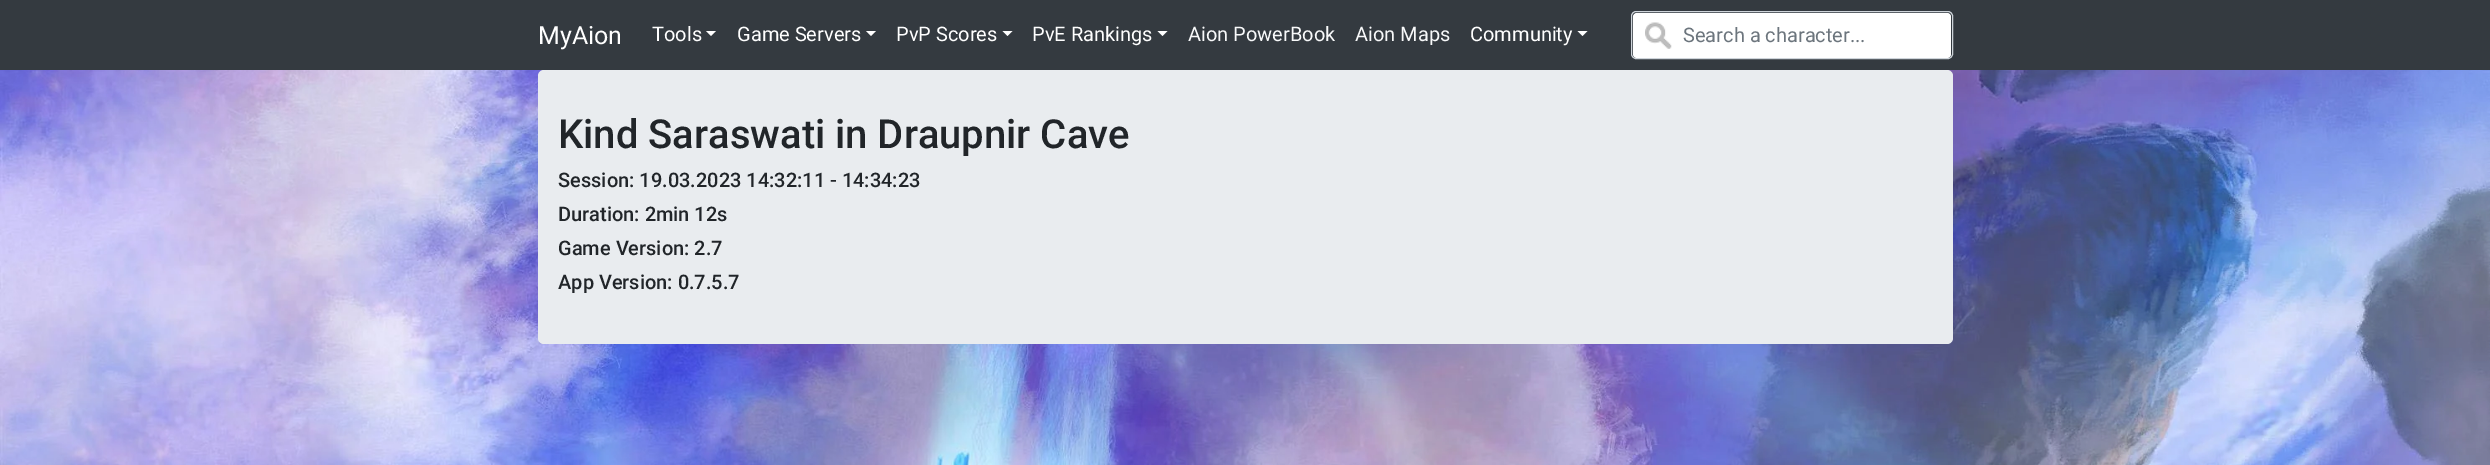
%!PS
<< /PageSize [2490 465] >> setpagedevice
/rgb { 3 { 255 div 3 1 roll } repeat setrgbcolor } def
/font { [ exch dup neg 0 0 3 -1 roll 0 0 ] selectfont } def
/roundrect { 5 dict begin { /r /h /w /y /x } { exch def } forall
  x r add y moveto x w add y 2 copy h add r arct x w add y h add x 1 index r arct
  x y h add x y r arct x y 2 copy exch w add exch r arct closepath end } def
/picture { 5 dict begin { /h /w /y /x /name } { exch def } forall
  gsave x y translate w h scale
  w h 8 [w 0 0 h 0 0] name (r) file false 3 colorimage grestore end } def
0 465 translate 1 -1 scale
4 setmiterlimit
255 255 255 rgb
0 0 2490 465 rectfill
(img/1.rgb) 0 70 2490 395 picture
52 58 64 rgb
0 0 2490 70 rectfill
255 255 255 rgb
706 31 moveto 716 31 lineto 711 36 lineto closepath fill
866 31 moveto 876 31 lineto 871 36 lineto closepath fill
1002.5 31 moveto 1012.5 31 lineto 1007.5 36 lineto closepath fill
1157.5 31 moveto 1167.5 31 lineto 1162.5 36 lineto closepath fill
1577.5 31 moveto 1587.5 31 lineto 1582.5 36 lineto closepath fill
1633 13 318 45 4 roundrect fill
(img/2.rgb) 1645 22 27 27 picture
206 212 218 rgb
1631.5 11.5 321 47 4.5 roundrect stroke
233 236 239 rgb
538 70 1415 274 6 roundrect fill
/Roboto-Regular 25 font
255 255 255 rgb
538 44 moveto (MyAion) show
/Roboto-Regular 20 font
[
  [(Tools) 652 41]
  [(Game Servers) 737 41]
  [(PvP Scores) 896 41]
  [(PvE Rankings) 1032 41]
] { aload pop moveto show } forall
248 249 250 rgb
1188 41 moveto (Aion PowerBook) show
1355 41 moveto (Aion Maps) show
255 255 255 rgb
1470 41 moveto (Community) show
108 117 125 rgb
1683 42 moveto (Search a character...) show
/Roboto-Medium 40 font
33 37 41 rgb
558 148 moveto (Kind Saraswati in Draupnir Cave) show
/Roboto-Medium 20 font
[
  [(Session: 19.03.2023 14:32:11 - 14:34:23) 558 187]
  [(Duration: 2min 12s) 558 221]
  [(Game Version: 2.7) 558 255]
  [(App Version: 0.7.5.7) 558 289]
] { aload pop moveto show } forall
showpage
